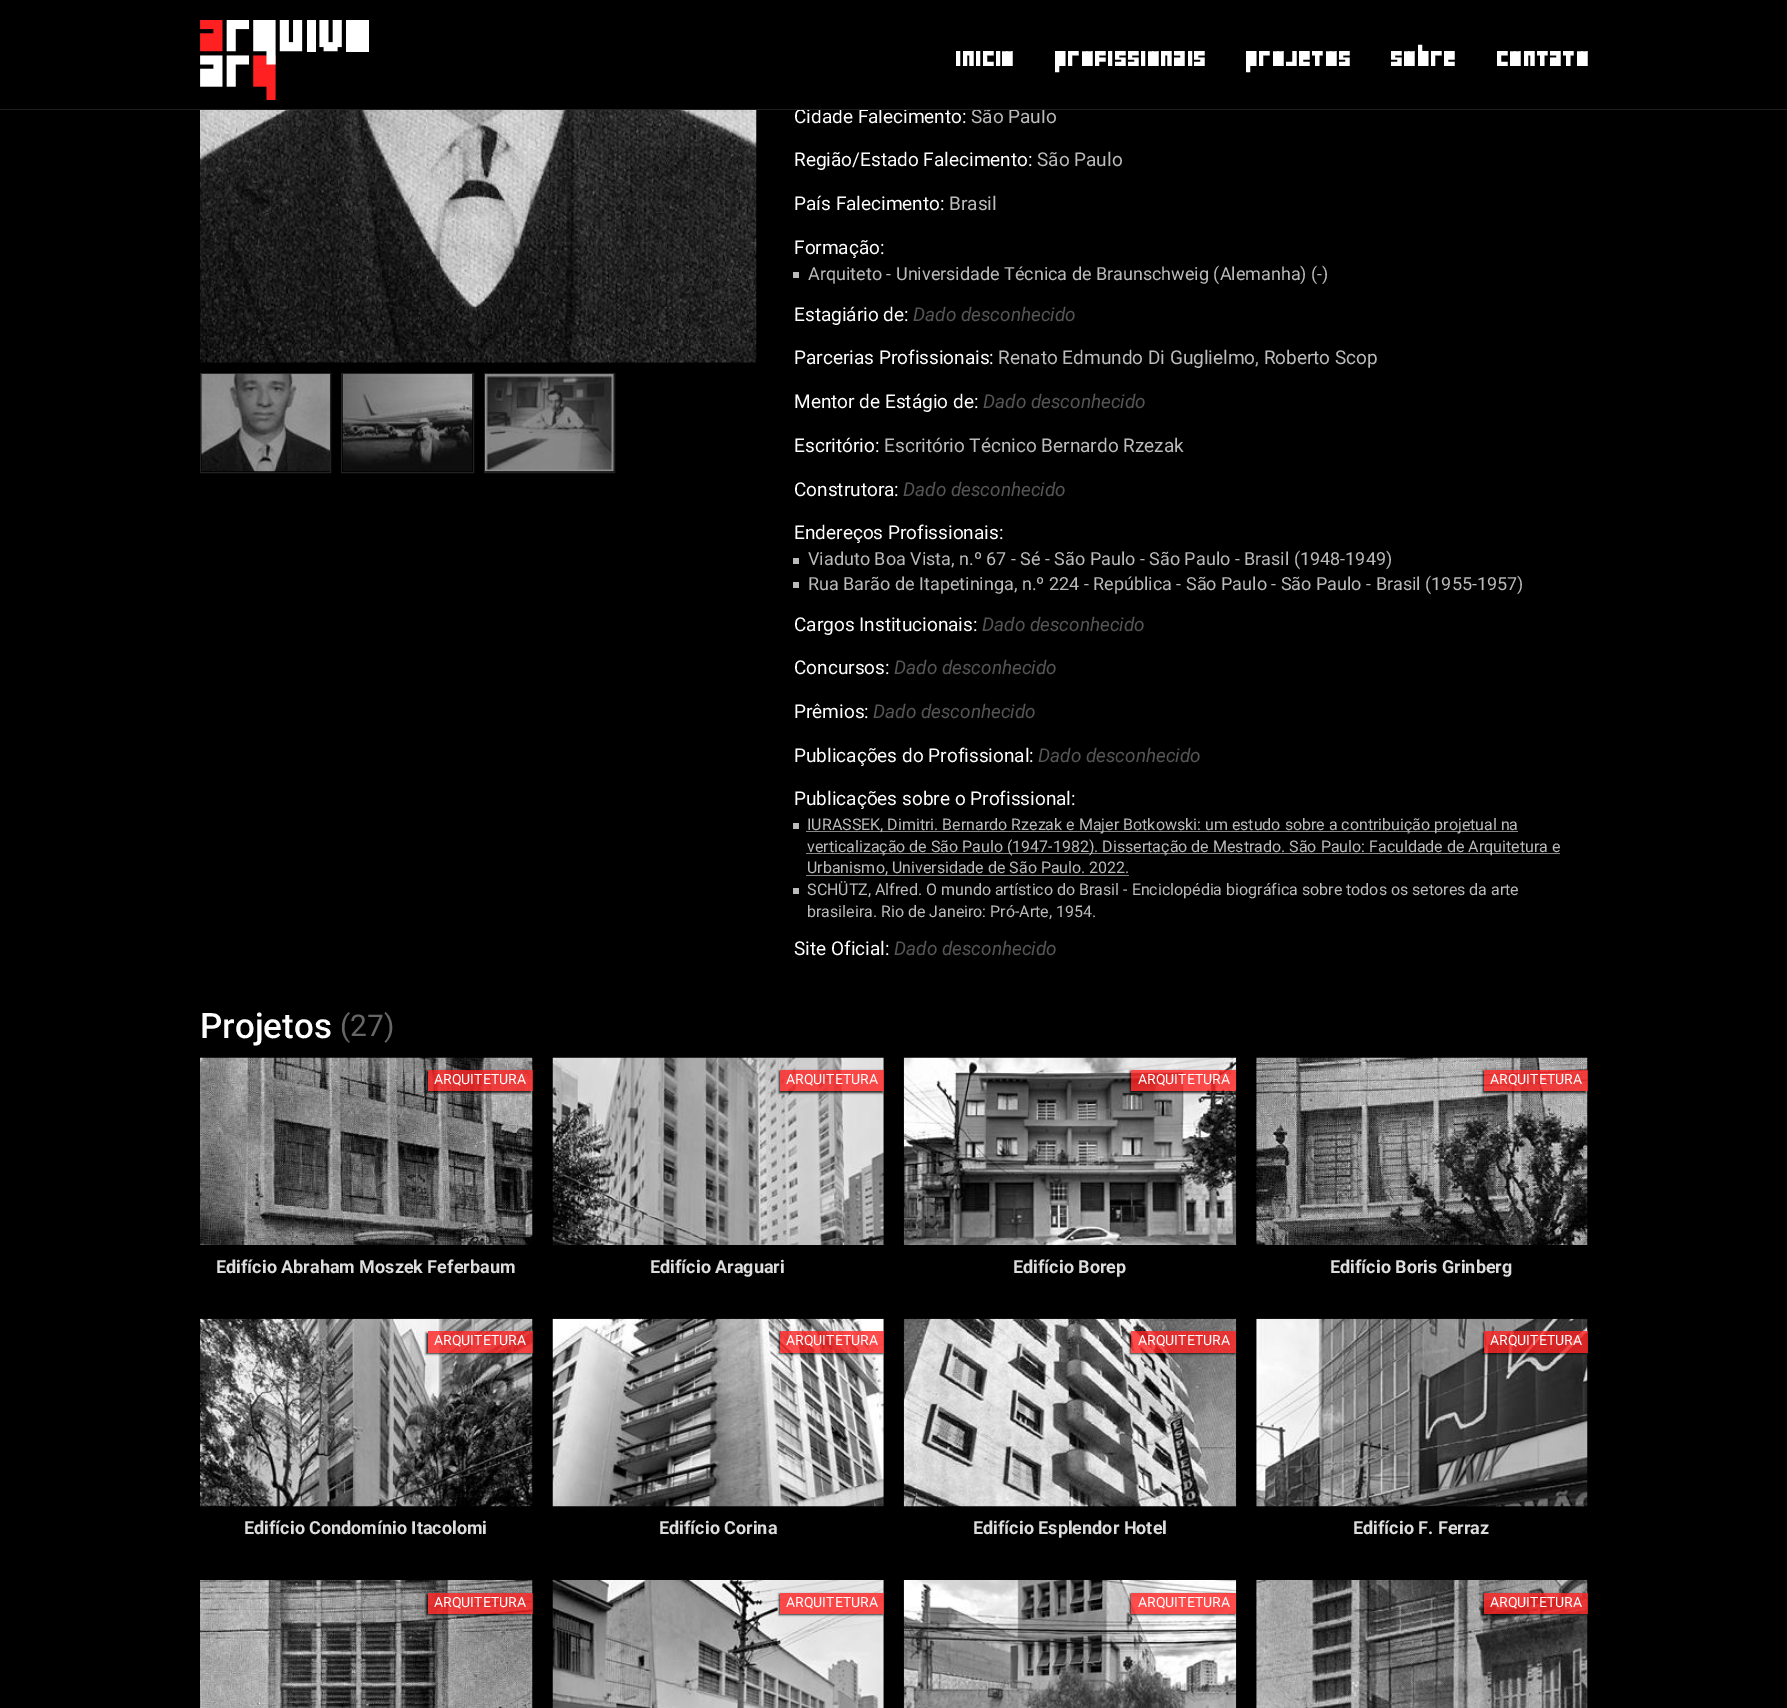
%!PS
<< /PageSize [1787 1708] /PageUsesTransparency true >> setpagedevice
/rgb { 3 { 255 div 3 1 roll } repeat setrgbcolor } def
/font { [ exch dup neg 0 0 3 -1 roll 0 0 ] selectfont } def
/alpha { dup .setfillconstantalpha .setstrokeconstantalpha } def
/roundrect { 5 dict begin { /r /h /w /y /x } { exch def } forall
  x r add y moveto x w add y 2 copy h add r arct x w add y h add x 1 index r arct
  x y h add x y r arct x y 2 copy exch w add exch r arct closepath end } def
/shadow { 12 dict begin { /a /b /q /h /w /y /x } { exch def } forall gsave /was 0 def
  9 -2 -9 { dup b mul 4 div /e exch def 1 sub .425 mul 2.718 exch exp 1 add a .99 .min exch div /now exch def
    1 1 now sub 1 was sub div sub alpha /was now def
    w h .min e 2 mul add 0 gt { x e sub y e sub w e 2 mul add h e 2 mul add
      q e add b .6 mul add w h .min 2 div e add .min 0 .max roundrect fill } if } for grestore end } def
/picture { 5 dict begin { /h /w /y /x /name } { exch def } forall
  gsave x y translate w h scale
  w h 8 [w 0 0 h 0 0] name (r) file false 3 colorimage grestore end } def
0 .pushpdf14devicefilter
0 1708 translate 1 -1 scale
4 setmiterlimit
0 0 0 rgb
0 0 1787 1708 rectfill
(img/1.rgb) 200 20 169 80 picture
(img/2.rgb) 200 110 557 253 picture
34 34 34 rgb
200.5 373.5 130 99 rectstroke
(img/3.rgb) 201 373 129 99 picture
341.5 373.5 132 99 rectstroke
(img/4.rgb) 342 373 131 99 picture
484.5 373.5 130 99 rectstroke
(img/5.rgb) 485 373 129 99 picture
[
  [793 272 6 6 187 187 187]
  [793 558 6 6 187 187 187]
  [793 582 6 6 187 187 187]
  [793 823 6 6 187 187 187]
  [806 831 712 1 136 136 136]
  [806 853 754 1 136 136 136]
  [806 875 323 1 136 136 136]
  [793 888 6 6 187 187 187]
] { aload pop rgb rectfill } forall
(img/6.rgb) 200 1057 333 188 picture
gsave
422 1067 moveto 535 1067 lineto 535 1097 lineto 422 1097 lineto closepath 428 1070 moveto 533 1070 lineto 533 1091 lineto 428 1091 lineto closepath eoclip newpath
0 0 0 rgb
426 1071 105 22 0 1 0.8 shadow
grestore
0.8 alpha
255 33 33 rgb
428 1070 105 21 rectfill
1 alpha
(img/7.rgb) 552 1057 332 188 picture
gsave
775 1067 moveto 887 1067 lineto 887 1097 lineto 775 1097 lineto closepath 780 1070 moveto 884 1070 lineto 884 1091 lineto 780 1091 lineto closepath eoclip newpath
0 0 0 rgb
779 1071 104 22 0 1 0.8 shadow
grestore
0.8 alpha
780 1070 104 21 rectfill
1 alpha
(img/8.rgb) 903 1057 334 188 picture
gsave
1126 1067 moveto 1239 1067 lineto 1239 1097 lineto 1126 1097 lineto closepath 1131 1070 moveto 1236 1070 lineto 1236 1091 lineto 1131 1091 lineto closepath eoclip newpath
0 0 0 rgb
1130 1071 105 22 0 1 0.8 shadow
grestore
0.8 alpha
1131 1070 105 21 rectfill
1 alpha
(img/9.rgb) 1256 1057 332 188 picture
gsave
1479 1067 moveto 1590 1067 lineto 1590 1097 lineto 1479 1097 lineto closepath 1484 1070 moveto 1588 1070 lineto 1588 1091 lineto 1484 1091 lineto closepath eoclip newpath
0 0 0 rgb
1483 1071 103 22 0 1 0.8 shadow
grestore
0.8 alpha
1484 1070 104 21 rectfill
1 alpha
(img/10.rgb) 200 1318 333 189 picture
gsave
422 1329 moveto 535 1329 lineto 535 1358 lineto 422 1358 lineto closepath 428 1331 moveto 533 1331 lineto 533 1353 lineto 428 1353 lineto closepath eoclip newpath
0 0 0 rgb
426 1333 105 21 0 1 0.8 shadow
grestore
0.8 alpha
428 1331 105 22 rectfill
1 alpha
(img/11.rgb) 552 1318 332 189 picture
gsave
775 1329 moveto 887 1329 lineto 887 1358 lineto 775 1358 lineto closepath 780 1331 moveto 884 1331 lineto 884 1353 lineto 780 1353 lineto closepath eoclip newpath
0 0 0 rgb
779 1333 104 21 0 1 0.8 shadow
grestore
0.8 alpha
780 1331 104 22 rectfill
1 alpha
(img/12.rgb) 903 1318 334 189 picture
gsave
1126 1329 moveto 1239 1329 lineto 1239 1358 lineto 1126 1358 lineto closepath 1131 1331 moveto 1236 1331 lineto 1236 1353 lineto 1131 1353 lineto closepath eoclip newpath
0 0 0 rgb
1130 1333 105 21 0 1 0.8 shadow
grestore
0.8 alpha
1131 1331 105 22 rectfill
1 alpha
(img/13.rgb) 1256 1318 332 189 picture
gsave
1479 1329 moveto 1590 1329 lineto 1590 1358 lineto 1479 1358 lineto closepath 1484 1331 moveto 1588 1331 lineto 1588 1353 lineto 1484 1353 lineto closepath eoclip newpath
0 0 0 rgb
1483 1333 103 21 0 1 0.8 shadow
grestore
0.8 alpha
1484 1331 104 22 rectfill
1 alpha
(img/14.rgb) 200 1580 333 128 picture
gsave
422 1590 moveto 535 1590 lineto 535 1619 lineto 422 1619 lineto closepath 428 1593 moveto 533 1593 lineto 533 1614 lineto 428 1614 lineto closepath eoclip newpath
0 0 0 rgb
426 1594 105 21 0 1 0.8 shadow
grestore
0.8 alpha
428 1593 105 21 rectfill
1 alpha
(img/15.rgb) 552 1580 332 128 picture
gsave
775 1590 moveto 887 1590 lineto 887 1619 lineto 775 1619 lineto closepath 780 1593 moveto 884 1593 lineto 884 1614 lineto 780 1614 lineto closepath eoclip newpath
0 0 0 rgb
779 1594 104 21 0 1 0.8 shadow
grestore
0.8 alpha
780 1593 104 21 rectfill
1 alpha
(img/16.rgb) 903 1580 334 128 picture
gsave
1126 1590 moveto 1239 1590 lineto 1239 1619 lineto 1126 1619 lineto closepath 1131 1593 moveto 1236 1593 lineto 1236 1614 lineto 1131 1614 lineto closepath eoclip newpath
0 0 0 rgb
1130 1594 105 21 0 1 0.8 shadow
grestore
0.8 alpha
1131 1593 105 21 rectfill
1 alpha
(img/17.rgb) 1256 1580 332 128 picture
gsave
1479 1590 moveto 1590 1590 lineto 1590 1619 lineto 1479 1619 lineto closepath 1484 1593 moveto 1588 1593 lineto 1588 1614 lineto 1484 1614 lineto closepath eoclip newpath
0 0 0 rgb
1483 1594 103 21 0 1 0.8 shadow
grestore
0.8 alpha
1484 1593 104 21 rectfill
/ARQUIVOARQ-Regular 26 font
1 alpha
255 255 255 rgb
[
  [(Inicio) 954 66]
  [(Profissionais) 1053 66]
  [(Projetos) 1244 66]
  [(Sobre) 1389 66]
  [(Contato) 1495 66]
] { aload pop moveto show } forall
/Roboto-Regular 19 font
794 123 moveto (Cidade Falecimento:) show
187 187 187 rgb
971 123 moveto (São Paulo) show
31 31 31 rgb
0 109 1787 1 rectfill
0 0 0 rgb
818 108 226 1 rectfill
255 255 255 rgb
794 166 moveto (Região/Estado Falecimento:) show
187 187 187 rgb
1037 166 moveto (São Paulo) show
255 255 255 rgb
794 210 moveto (País Falecimento:) show
187 187 187 rgb
949 210 moveto (Brasil) show
255 255 255 rgb
794 254 moveto (Formação:) show
/Roboto-Regular 18 font
187 187 187 rgb
808 280 moveto (Arquiteto - Universidade Técnica de Braunschweig \(Alemanha\) \(-\)) show
/Roboto-Regular 19 font
255 255 255 rgb
794 321 moveto (Estagiário de:) show
/Roboto-Italic 19 font
85 85 85 rgb
913 321 moveto (Dado desconhecido) show
/Roboto-Regular 19 font
255 255 255 rgb
794 364 moveto (Parcerias Profissionais:) show
187 187 187 rgb
998 364 moveto (Renato Edmundo Di Guglielmo, Roberto Scop) show
255 255 255 rgb
794 408 moveto (Mentor de Estágio de:) show
/Roboto-Italic 19 font
85 85 85 rgb
983 408 moveto (Dado desconhecido) show
/Roboto-Regular 19 font
255 255 255 rgb
794 452 moveto (Escritório:) show
187 187 187 rgb
884 452 moveto (Escritório Técnico Bernardo Rzezak) show
255 255 255 rgb
794 496 moveto (Construtora:) show
/Roboto-Italic 19 font
85 85 85 rgb
903 496 moveto (Dado desconhecido) show
/Roboto-Regular 19 font
255 255 255 rgb
794 539 moveto (Endereços Profissionais:) show
/Roboto-Regular 18 font
187 187 187 rgb
808 565 moveto (Viaduto Boa Vista, n.º 67 - Sé - São Paulo - São Paulo - Brasil \(1948-1949\)) show
808 590 moveto (Rua Barão de Itapetininga, n.º 224 - República - São Paulo - São Paulo - Brasil \(1955-1957\)) show
/Roboto-Regular 19 font
255 255 255 rgb
794 631 moveto (Cargos Institucionais:) show
/Roboto-Italic 19 font
85 85 85 rgb
982 631 moveto (Dado desconhecido) show
/Roboto-Regular 19 font
255 255 255 rgb
794 674 moveto (Concursos:) show
/Roboto-Italic 19 font
85 85 85 rgb
894 674 moveto (Dado desconhecido) show
/Roboto-Regular 19 font
255 255 255 rgb
794 718 moveto (Prêmios:) show
/Roboto-Italic 19 font
85 85 85 rgb
873 718 moveto (Dado desconhecido) show
/Roboto-Regular 19 font
255 255 255 rgb
794 762 moveto (Publicações do Profissional:) show
/Roboto-Italic 19 font
85 85 85 rgb
1038 762 moveto (Dado desconhecido) show
/Roboto-Regular 19 font
255 255 255 rgb
794 805 moveto (Publicações sobre o Profissional:) show
/Roboto-Regular 16 font
187 187 187 rgb
[
  [(IURASSEK, Dimitri. Bernardo Rzezak e Majer Botkowski: um estudo sobre a contribuição projetual na) 807 830]
  [(verticalização de São Paulo \(1947-1982\). Dissertação de Mestrado. São Paulo: Faculdade de Arquitetura e) 807 852]
  [(Urbanismo, Universidade de São Paulo. 2022.) 807 873]
  [(SCHÜTZ, Alfred. O mundo artístico do Brasil - Enciclopédia biográfica sobre todos os setores da arte) 807 895]
  [(brasileira. Rio de Janeiro: Pró-Arte, 1954.) 807 917]
] { aload pop moveto show } forall
/Roboto-Regular 19 font
255 255 255 rgb
794 955 moveto (Site Oficial:) show
/Roboto-Italic 19 font
85 85 85 rgb
894 955 moveto (Dado desconhecido) show
/Roboto-Medium 35 font
255 255 255 rgb
200 1038 moveto (Projetos) show
/Roboto-Regular 30 font
102 102 102 rgb
340 1036 moveto (\(27\)) show
/Roboto-Regular 14 font
255 255 255 rgb
434 1084 moveto (ARQUITETURA) show
/Roboto-Bold 18 font
221 221 221 rgb
216 1273 moveto (Edifício Abraham Moszek Feferbaum) show
/Roboto-Regular 14 font
255 255 255 rgb
786 1084 moveto (ARQUITETURA) show
/Roboto-Bold 18 font
221 221 221 rgb
650 1273 moveto (Edifício Araguari) show
/Roboto-Regular 14 font
255 255 255 rgb
1138 1084 moveto (ARQUITETURA) show
/Roboto-Bold 18 font
221 221 221 rgb
1013 1273 moveto (Edifício Borep) show
/Roboto-Regular 14 font
255 255 255 rgb
1490 1084 moveto (ARQUITETURA) show
/Roboto-Bold 18 font
221 221 221 rgb
1330 1273 moveto (Edifício Boris Grinberg) show
/Roboto-Regular 14 font
255 255 255 rgb
434 1345 moveto (ARQUITETURA) show
/Roboto-Bold 18 font
221 221 221 rgb
244 1534 moveto (Edifício Condomínio Itacolomi) show
/Roboto-Regular 14 font
255 255 255 rgb
786 1345 moveto (ARQUITETURA) show
/Roboto-Bold 18 font
221 221 221 rgb
659 1534 moveto (Edifício Corina) show
/Roboto-Regular 14 font
255 255 255 rgb
1138 1345 moveto (ARQUITETURA) show
/Roboto-Bold 18 font
221 221 221 rgb
973 1534 moveto (Edifício Esplendor Hotel) show
/Roboto-Regular 14 font
255 255 255 rgb
1490 1345 moveto (ARQUITETURA) show
/Roboto-Bold 18 font
221 221 221 rgb
1353 1534 moveto (Edifício F. Ferraz) show
/Roboto-Regular 14 font
255 255 255 rgb
[
  [(ARQUITETURA) 434 1607]
  [(ARQUITETURA) 786 1607]
  [(ARQUITETURA) 1138 1607]
  [(ARQUITETURA) 1490 1607]
] { aload pop moveto show } forall
.poppdf14devicefilter showpage
